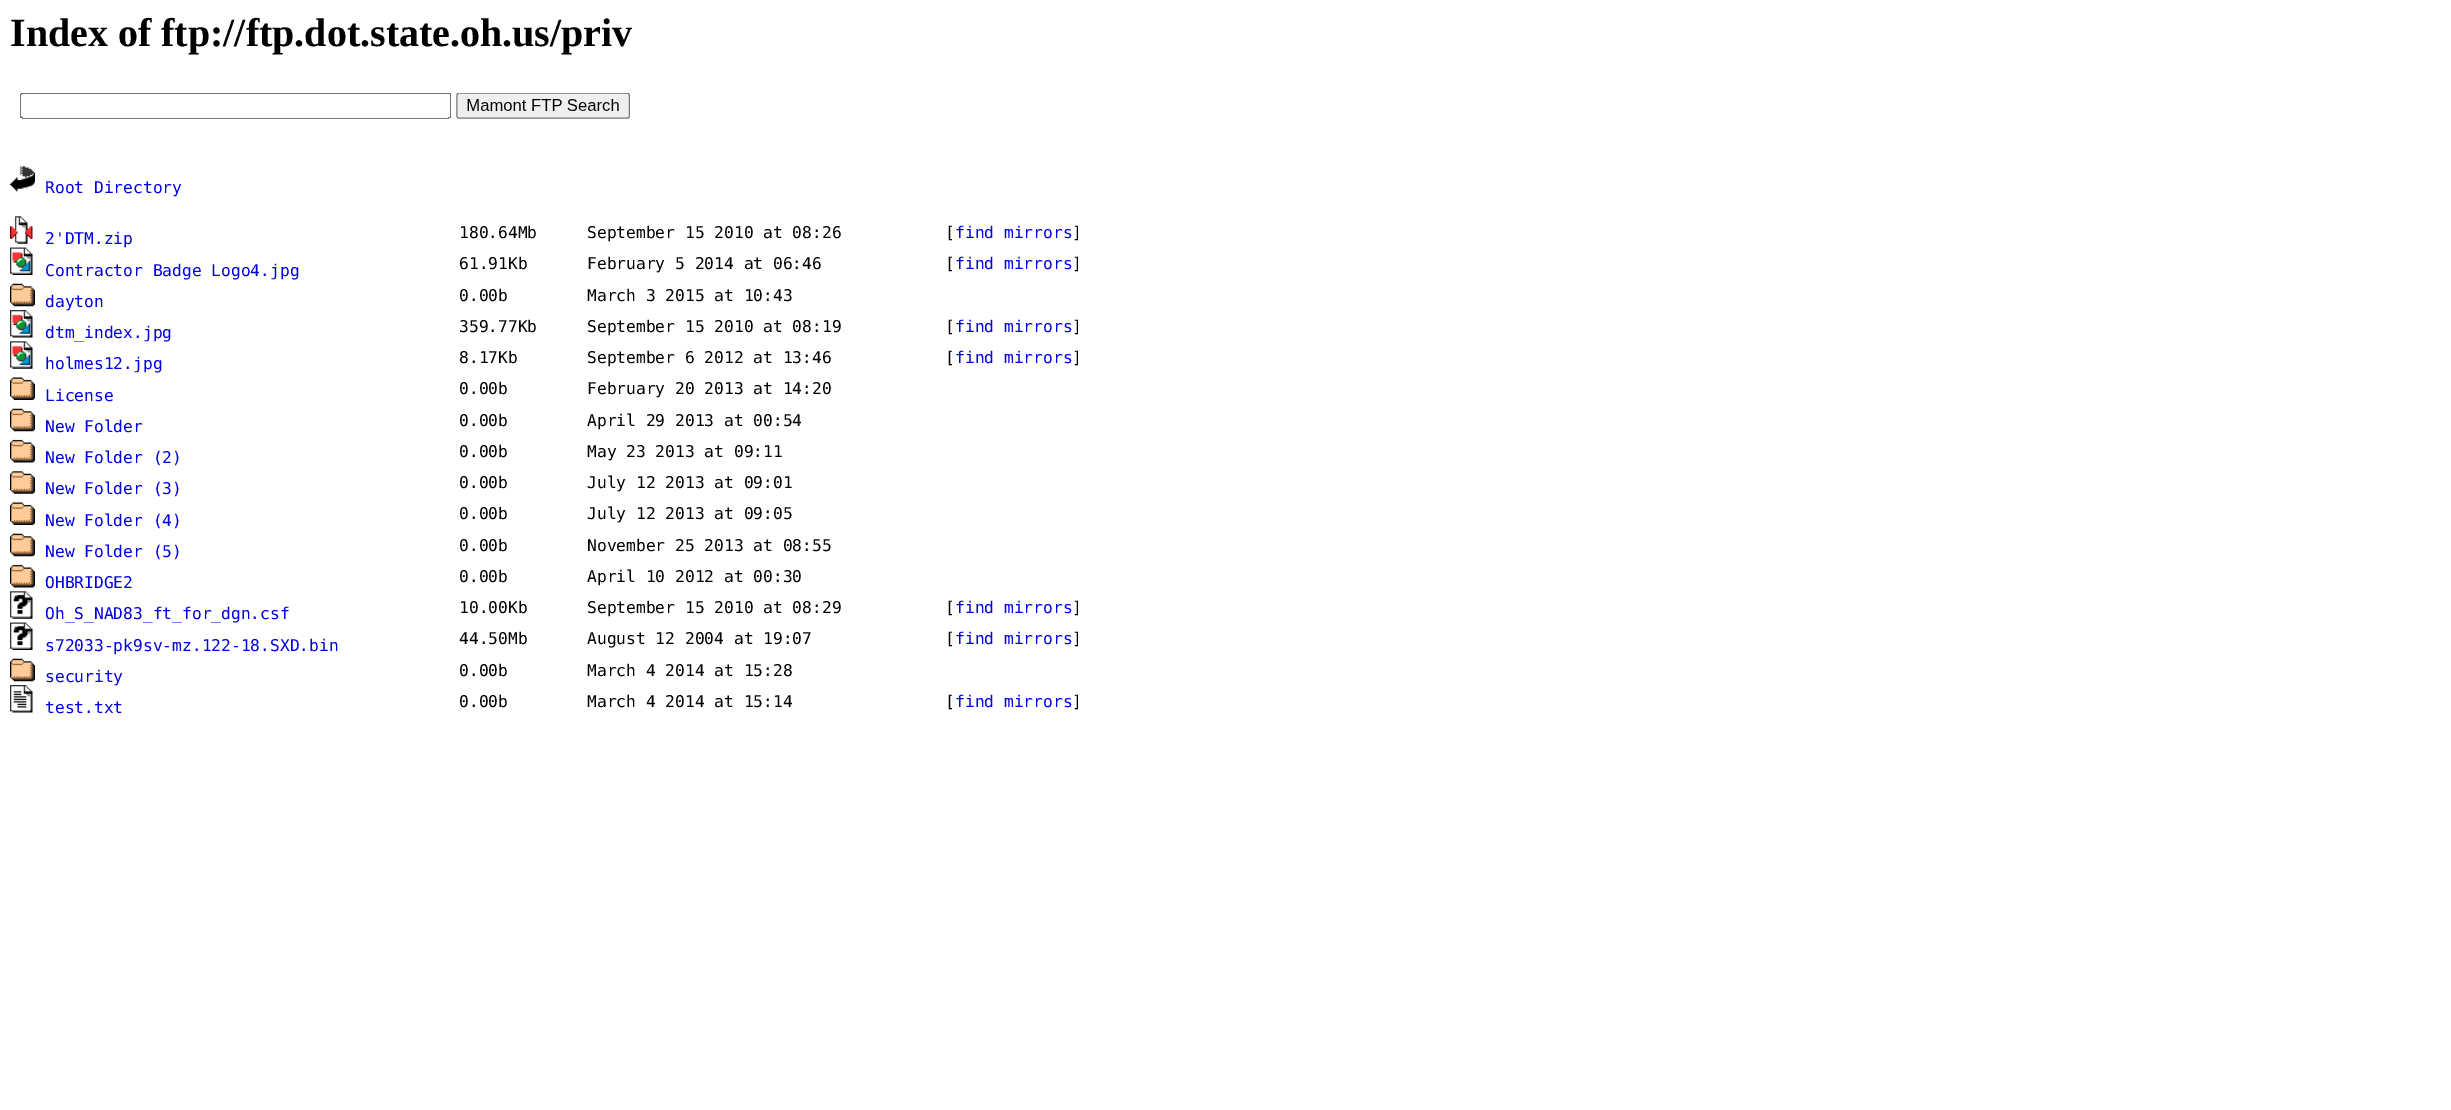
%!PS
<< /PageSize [2451 1110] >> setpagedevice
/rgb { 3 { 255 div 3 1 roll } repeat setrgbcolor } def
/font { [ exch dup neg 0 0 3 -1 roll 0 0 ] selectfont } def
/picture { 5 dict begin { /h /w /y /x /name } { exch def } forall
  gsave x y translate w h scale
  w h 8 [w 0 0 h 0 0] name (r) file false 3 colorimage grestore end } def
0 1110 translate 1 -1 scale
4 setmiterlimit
255 255 255 rgb
0 0 2451 1110 rectfill
(img/1.rgb) 20 93 610 26 picture
(img/2.rgb) 10 166 25 26 picture
(img/3.rgb) 10 216 23 28 picture
(img/4.rgb) 10 247 23 28 picture
(img/5.rgb) 10 283 25 24 picture
(img/6.rgb) 10 310 23 28 picture
(img/7.rgb) 10 341 23 28 picture
(img/8.rgb) 10 377 25 23 picture
(img/9.rgb) 10 408 25 24 picture
(img/10.rgb) 10 439 25 24 picture
(img/11.rgb) 10 471 25 23 picture
(img/8.rgb) 10 502 25 23 picture
(img/9.rgb) 10 533 25 24 picture
(img/10.rgb) 10 564 25 24 picture
(img/12.rgb) 10 591 23 28 picture
(img/13.rgb) 10 622 23 28 picture
(img/9.rgb) 10 658 25 24 picture
(img/14.rgb) 10 685 23 28 picture
/LiberationSerif-Bold 40 font
0 0 0 rgb
10 46 moveto (Index of ftp://ftp.dot.state.oh.us/priv) show
/DejaVuSansMono-Regular 16.25 font
0 0 226 rgb
45 193 moveto (Root Directory) show
45 244 moveto (2'DTM.zip) show
0 0 0 rgb
[
  [(180.64Mb) 459 238]
  [(September 15 2010 at 08:26) 587 238]
  [([) 945 238]
] { aload pop moveto show } forall
0 0 226 rgb
955 238 moveto (find mirrors) show
0 0 0 rgb
1072 238 moveto (]) show
0 0 226 rgb
45 276 moveto (Contractor Badge Logo4.jpg) show
0 0 0 rgb
[
  [(61.91Kb) 459 269]
  [(February 5 2014 at 06:46) 587 269]
  [([) 945 269]
] { aload pop moveto show } forall
0 0 226 rgb
955 269 moveto (find mirrors) show
0 0 0 rgb
1072 269 moveto (]) show
0 0 226 rgb
45 307 moveto (dayton) show
0 0 0 rgb
459 301 moveto (0.00b) show
587 301 moveto (March 3 2015 at 10:43) show
0 0 226 rgb
45 338 moveto (dtm_index.jpg) show
0 0 0 rgb
[
  [(359.77Kb) 459 332]
  [(September 15 2010 at 08:19) 587 332]
  [([) 945 332]
] { aload pop moveto show } forall
0 0 226 rgb
955 332 moveto (find mirrors) show
0 0 0 rgb
1072 332 moveto (]) show
0 0 226 rgb
45 369 moveto (holmes12.jpg) show
0 0 0 rgb
[
  [(8.17Kb) 459 363]
  [(September 6 2012 at 13:46) 587 363]
  [([) 945 363]
] { aload pop moveto show } forall
0 0 226 rgb
955 363 moveto (find mirrors) show
0 0 0 rgb
1072 363 moveto (]) show
0 0 226 rgb
45 401 moveto (License) show
0 0 0 rgb
459 394 moveto (0.00b) show
587 394 moveto (February 20 2013 at 14:20) show
0 0 226 rgb
45 432 moveto (New Folder) show
0 0 0 rgb
459 426 moveto (0.00b) show
587 426 moveto (April 29 2013 at 00:54) show
0 0 226 rgb
45 463 moveto (New Folder \(2\)) show
0 0 0 rgb
459 457 moveto (0.00b) show
587 457 moveto (May 23 2013 at 09:11) show
0 0 226 rgb
45 494 moveto (New Folder \(3\)) show
0 0 0 rgb
459 488 moveto (0.00b) show
587 488 moveto (July 12 2013 at 09:01) show
0 0 226 rgb
45 526 moveto (New Folder \(4\)) show
0 0 0 rgb
459 519 moveto (0.00b) show
587 519 moveto (July 12 2013 at 09:05) show
0 0 226 rgb
45 557 moveto (New Folder \(5\)) show
0 0 0 rgb
459 551 moveto (0.00b) show
587 551 moveto (November 25 2013 at 08:55) show
0 0 226 rgb
45 588 moveto (OHBRIDGE2) show
0 0 0 rgb
459 582 moveto (0.00b) show
587 582 moveto (April 10 2012 at 00:30) show
0 0 226 rgb
45 619 moveto (Oh_S_NAD83_ft_for_dgn.csf) show
0 0 0 rgb
[
  [(10.00Kb) 459 613]
  [(September 15 2010 at 08:29) 587 613]
  [([) 945 613]
] { aload pop moveto show } forall
0 0 226 rgb
955 613 moveto (find mirrors) show
0 0 0 rgb
1072 613 moveto (]) show
0 0 226 rgb
45 651 moveto (s72033-pk9sv-mz.122-18.SXD.bin) show
0 0 0 rgb
[
  [(44.50Mb) 459 644]
  [(August 12 2004 at 19:07) 587 644]
  [([) 945 644]
] { aload pop moveto show } forall
0 0 226 rgb
955 644 moveto (find mirrors) show
0 0 0 rgb
1072 644 moveto (]) show
0 0 226 rgb
45 682 moveto (security) show
0 0 0 rgb
459 676 moveto (0.00b) show
587 676 moveto (March 4 2014 at 15:28) show
0 0 226 rgb
45 713 moveto (test.txt) show
0 0 0 rgb
[
  [(0.00b) 459 707]
  [(March 4 2014 at 15:14) 587 707]
  [([) 945 707]
] { aload pop moveto show } forall
0 0 226 rgb
955 707 moveto (find mirrors) show
0 0 0 rgb
1072 707 moveto (]) show
showpage
